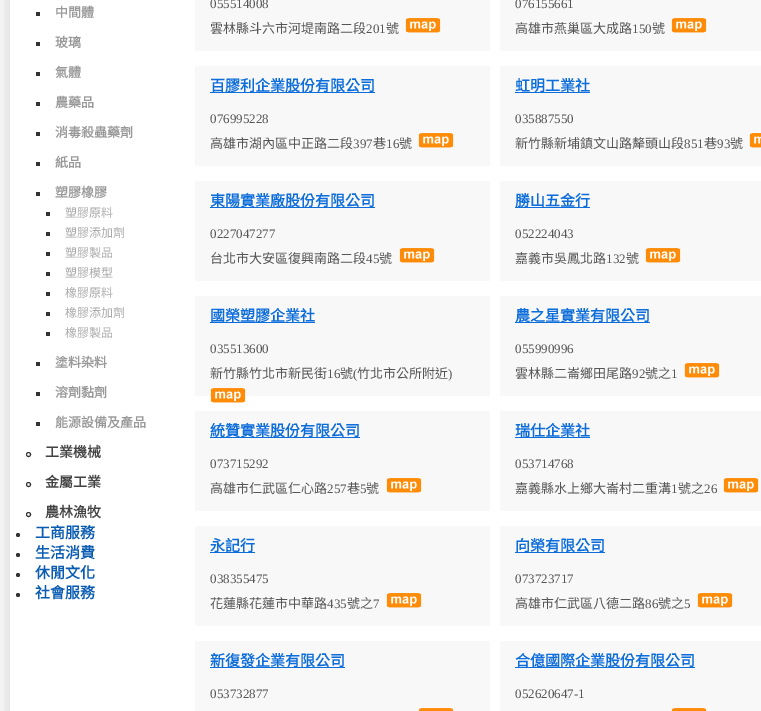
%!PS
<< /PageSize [761 711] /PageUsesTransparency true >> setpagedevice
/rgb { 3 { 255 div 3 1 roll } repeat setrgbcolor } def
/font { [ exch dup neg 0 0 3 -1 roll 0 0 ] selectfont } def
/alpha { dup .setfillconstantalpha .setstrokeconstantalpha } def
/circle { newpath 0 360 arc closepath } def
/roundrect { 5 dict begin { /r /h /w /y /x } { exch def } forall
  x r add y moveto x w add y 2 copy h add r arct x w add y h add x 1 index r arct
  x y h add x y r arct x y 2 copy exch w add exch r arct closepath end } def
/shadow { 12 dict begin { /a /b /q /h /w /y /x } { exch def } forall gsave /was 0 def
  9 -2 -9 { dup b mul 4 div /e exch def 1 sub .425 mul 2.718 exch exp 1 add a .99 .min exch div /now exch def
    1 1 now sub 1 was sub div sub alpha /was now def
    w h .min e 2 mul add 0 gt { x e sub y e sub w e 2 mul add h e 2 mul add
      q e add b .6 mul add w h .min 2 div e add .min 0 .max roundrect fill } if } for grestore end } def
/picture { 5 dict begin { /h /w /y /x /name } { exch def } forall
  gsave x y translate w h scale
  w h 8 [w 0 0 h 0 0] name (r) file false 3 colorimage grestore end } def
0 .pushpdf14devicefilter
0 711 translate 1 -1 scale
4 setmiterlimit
255 255 255 rgb
0 0 761 711 rectfill
gsave
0 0 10 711 rectclip
211 211 211 rgb
7 -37 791 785 7 10 1 shadow
grestore
[
  [36 12 4 4 51 51 51]
  [36 42 4 4 51 51 51]
  [36 72 4 4 51 51 51]
  [36 102 4 4 51 51 51]
  [36 132 4 4 51 51 51]
  [36 162 4 4 51 51 51]
  [36 192 4 4 51 51 51]
  [46 212 4 4 51 51 51]
  [46 232 4 4 51 51 51]
  [46 252 4 4 51 51 51]
  [46 272 4 4 51 51 51]
  [46 292 4 4 51 51 51]
  [46 312 4 4 51 51 51]
  [46 332 4 4 51 51 51]
  [36 362 4 4 51 51 51]
  [36 392 4 4 51 51 51]
  [36 422 4 4 51 51 51]
] { aload pop rgb rectfill } forall
28.5 454.5 2 circle stroke
28.5 484.5 2 circle stroke
28.5 514.5 2 circle stroke
18 535 2 circle fill
18 555 2 circle fill
18 575 2 circle fill
18 595 2 circle fill
248 248 248 rgb
195 0 295 51 rectfill
(img/1.rgb) 405 18 36 15 picture
500 0 261 51 rectfill
(img/1.rgb) 671 18 36 15 picture
195 66 295 100 rectfill
13 109 219 rgb
210 92 165 1 rectfill
(img/1.rgb) 418 133 36 15 picture
248 248 248 rgb
500 66 261 100 rectfill
13 109 219 rgb
515 92 75 1 rectfill
(img/2.rgb) 749 133 12 15 picture
248 248 248 rgb
195 181 295 100 rectfill
13 109 219 rgb
210 207 165 1 rectfill
(img/1.rgb) 399 248 36 15 picture
248 248 248 rgb
500 181 261 100 rectfill
13 109 219 rgb
515 207 75 1 rectfill
(img/1.rgb) 645 248 36 15 picture
248 248 248 rgb
195 296 295 100 rectfill
13 109 219 rgb
210 322 105 1 rectfill
(img/3.rgb) 210 388 36 15 picture
248 248 248 rgb
500 296 261 100 rectfill
13 109 219 rgb
515 322 135 1 rectfill
(img/1.rgb) 684 363 36 15 picture
248 248 248 rgb
195 411 295 100 rectfill
13 109 219 rgb
210 437 150 1 rectfill
(img/1.rgb) 386 478 36 15 picture
248 248 248 rgb
500 411 261 100 rectfill
13 109 219 rgb
515 437 75 1 rectfill
(img/1.rgb) 723 478 36 15 picture
248 248 248 rgb
195 526 295 100 rectfill
13 109 219 rgb
210 552 45 1 rectfill
(img/1.rgb) 386 593 36 15 picture
248 248 248 rgb
500 526 261 100 rectfill
13 109 219 rgb
515 552 90 1 rectfill
(img/1.rgb) 697 593 36 15 picture
248 248 248 rgb
195 641 295 70 rectfill
13 109 219 rgb
210 667 135 1 rectfill
(img/4.rgb) 418 708 36 3 picture
248 248 248 rgb
500 641 261 70 rectfill
13 109 219 rgb
515 667 180 1 rectfill
(img/4.rgb) 671 708 36 3 picture
/NotoSansCJKTC-Bold 13 font
153 153 153 rgb
[
  [(中間體) 55 17]
  [(玻璃) 55 47]
  [(氣體) 55 77]
  [(農藥品) 55 107]
  [(消毒殺蟲藥劑) 55 137]
  [(紙品) 55 167]
  [(塑膠橡膠) 55 197]
] { aload pop moveto show } forall
/NotoSansCJKTC-Regular 12 font
170 170 170 rgb
[
  [(塑膠原料) 65 217]
  [(塑膠添加劑) 65 237]
  [(塑膠製品) 65 257]
  [(塑膠模型) 65 277]
  [(橡膠原料) 65 297]
  [(橡膠添加劑) 65 317]
  [(橡膠製品) 65 337]
] { aload pop moveto show } forall
/NotoSansCJKTC-Bold 13 font
153 153 153 rgb
[
  [(塗料染料) 55 367]
  [(溶劑黏劑) 55 397]
  [(能源設備及產品) 55 427]
] { aload pop moveto show } forall
/NotoSansCJKTC-Bold 14 font
68 68 68 rgb
[
  [(工業機械) 45 457]
  [(金屬工業) 45 487]
  [(農林漁牧) 45 517]
] { aload pop moveto show } forall
/NotoSansCJKTC-Bold 15 font
10 91 178 rgb
[
  [(工商服務) 35 538]
  [(生活消費) 35 558]
  [(休閒文化) 35 578]
  [(社會服務) 35 598]
] { aload pop moveto show } forall
/LiberationSerif-Regular 13 font
85 85 85 rgb
210 8 moveto (055514008) show
/NotoSansCJKTC-Regular 13 font
210 33 moveto (雲林縣斗六市河堤南路二段) show
/LiberationSerif-Regular 13 font
366 33 moveto (201) show
/NotoSansCJKTC-Regular 13 font
386 33 moveto (號) show
/LiberationSerif-Regular 13 font
515 8 moveto (076155661) show
/NotoSansCJKTC-Regular 13 font
515 33 moveto (高雄市燕巢區大成路) show
/LiberationSerif-Regular 13 font
632 33 moveto (150) show
/NotoSansCJKTC-Regular 13 font
652 33 moveto (號) show
/NotoSansCJKTC-Bold 15 font
13 109 219 rgb
210 91 moveto (百膠利企業股份有限公司) show
/LiberationSerif-Regular 13 font
85 85 85 rgb
210 123 moveto (076995228) show
/NotoSansCJKTC-Regular 13 font
210 148 moveto (高雄市湖內區中正路二段) show
/LiberationSerif-Regular 13 font
353 148 moveto (397) show
/NotoSansCJKTC-Regular 13 font
373 148 moveto (巷) show
/LiberationSerif-Regular 13 font
386 148 moveto (16) show
/NotoSansCJKTC-Regular 13 font
399 148 moveto (號) show
/NotoSansCJKTC-Bold 15 font
13 109 219 rgb
515 91 moveto (虹明工業社) show
/LiberationSerif-Regular 13 font
85 85 85 rgb
515 123 moveto (035887550) show
/NotoSansCJKTC-Regular 13 font
515 148 moveto (新竹縣新埔鎮文山路犛頭山段) show
/LiberationSerif-Regular 13 font
684 148 moveto (851) show
/NotoSansCJKTC-Regular 13 font
704 148 moveto (巷) show
/LiberationSerif-Regular 13 font
717 148 moveto (93) show
/NotoSansCJKTC-Regular 13 font
730 148 moveto (號) show
/NotoSansCJKTC-Bold 15 font
13 109 219 rgb
210 206 moveto (東陽實業廠股份有限公司) show
/LiberationSerif-Regular 13 font
85 85 85 rgb
210 238 moveto (0227047277) show
/NotoSansCJKTC-Regular 13 font
210 263 moveto (台北市大安區復興南路二段) show
/LiberationSerif-Regular 13 font
366 263 moveto (45) show
/NotoSansCJKTC-Regular 13 font
379 263 moveto (號) show
/NotoSansCJKTC-Bold 15 font
13 109 219 rgb
515 206 moveto (勝山五金行) show
/LiberationSerif-Regular 13 font
85 85 85 rgb
515 238 moveto (052224043) show
/NotoSansCJKTC-Regular 13 font
515 263 moveto (嘉義市吳鳳北路) show
/LiberationSerif-Regular 13 font
606 263 moveto (132) show
/NotoSansCJKTC-Regular 13 font
626 263 moveto (號) show
/NotoSansCJKTC-Bold 15 font
13 109 219 rgb
210 321 moveto (國榮塑膠企業社) show
/LiberationSerif-Regular 13 font
85 85 85 rgb
210 353 moveto (035513600) show
/NotoSansCJKTC-Regular 13 font
210 378 moveto (新竹縣竹北市新民街) show
/LiberationSerif-Regular 13 font
327 378 moveto (16) show
/NotoSansCJKTC-Regular 13 font
340 378 moveto (號) show
/LiberationSerif-Regular 13 font
353 378 moveto (\() show
/NotoSansCJKTC-Regular 13 font
357 378 moveto (竹北市公所附近) show
/LiberationSerif-Regular 13 font
448 378 moveto (\)) show
/NotoSansCJKTC-Bold 15 font
13 109 219 rgb
515 321 moveto (農之星實業有限公司) show
/LiberationSerif-Regular 13 font
85 85 85 rgb
515 353 moveto (055990996) show
/NotoSansCJKTC-Regular 13 font
515 378 moveto (雲林縣二崙鄉田尾路) show
/LiberationSerif-Regular 13 font
632 378 moveto (92) show
/NotoSansCJKTC-Regular 13 font
645 378 moveto (號之) show
/LiberationSerif-Regular 13 font
671 378 moveto (1) show
/NotoSansCJKTC-Bold 15 font
13 109 219 rgb
210 436 moveto (統贊實業股份有限公司) show
/LiberationSerif-Regular 13 font
85 85 85 rgb
210 468 moveto (073715292) show
/NotoSansCJKTC-Regular 13 font
210 493 moveto (高雄市仁武區仁心路) show
/LiberationSerif-Regular 13 font
327 493 moveto (257) show
/NotoSansCJKTC-Regular 13 font
347 493 moveto (巷) show
/LiberationSerif-Regular 13 font
360 493 moveto (5) show
/NotoSansCJKTC-Regular 13 font
366 493 moveto (號) show
/NotoSansCJKTC-Bold 15 font
13 109 219 rgb
515 436 moveto (瑞仕企業社) show
/LiberationSerif-Regular 13 font
85 85 85 rgb
515 468 moveto (053714768) show
/NotoSansCJKTC-Regular 13 font
515 493 moveto (嘉義縣水上鄉大崙村二重溝) show
/LiberationSerif-Regular 13 font
671 493 moveto (1) show
/NotoSansCJKTC-Regular 13 font
678 493 moveto (號之) show
/LiberationSerif-Regular 13 font
704 493 moveto (26) show
/NotoSansCJKTC-Bold 15 font
13 109 219 rgb
210 551 moveto (永記行) show
/LiberationSerif-Regular 13 font
85 85 85 rgb
210 583 moveto (038355475) show
/NotoSansCJKTC-Regular 13 font
210 608 moveto (花蓮縣花蓮市中華路) show
/LiberationSerif-Regular 13 font
327 608 moveto (435) show
/NotoSansCJKTC-Regular 13 font
347 608 moveto (號之) show
/LiberationSerif-Regular 13 font
373 608 moveto (7) show
/NotoSansCJKTC-Bold 15 font
13 109 219 rgb
515 551 moveto (向榮有限公司) show
/LiberationSerif-Regular 13 font
85 85 85 rgb
515 583 moveto (073723717) show
/NotoSansCJKTC-Regular 13 font
515 608 moveto (高雄市仁武區八德二路) show
/LiberationSerif-Regular 13 font
645 608 moveto (86) show
/NotoSansCJKTC-Regular 13 font
658 608 moveto (號之) show
/LiberationSerif-Regular 13 font
684 608 moveto (5) show
/NotoSansCJKTC-Bold 15 font
13 109 219 rgb
210 666 moveto (新復發企業有限公司) show
/LiberationSerif-Regular 13 font
85 85 85 rgb
210 698 moveto (053732877) show
/NotoSansCJKTC-Bold 15 font
13 109 219 rgb
515 666 moveto (合億國際企業股份有限公司) show
/LiberationSerif-Regular 13 font
85 85 85 rgb
515 698 moveto (052620647-1) show
.poppdf14devicefilter showpage
